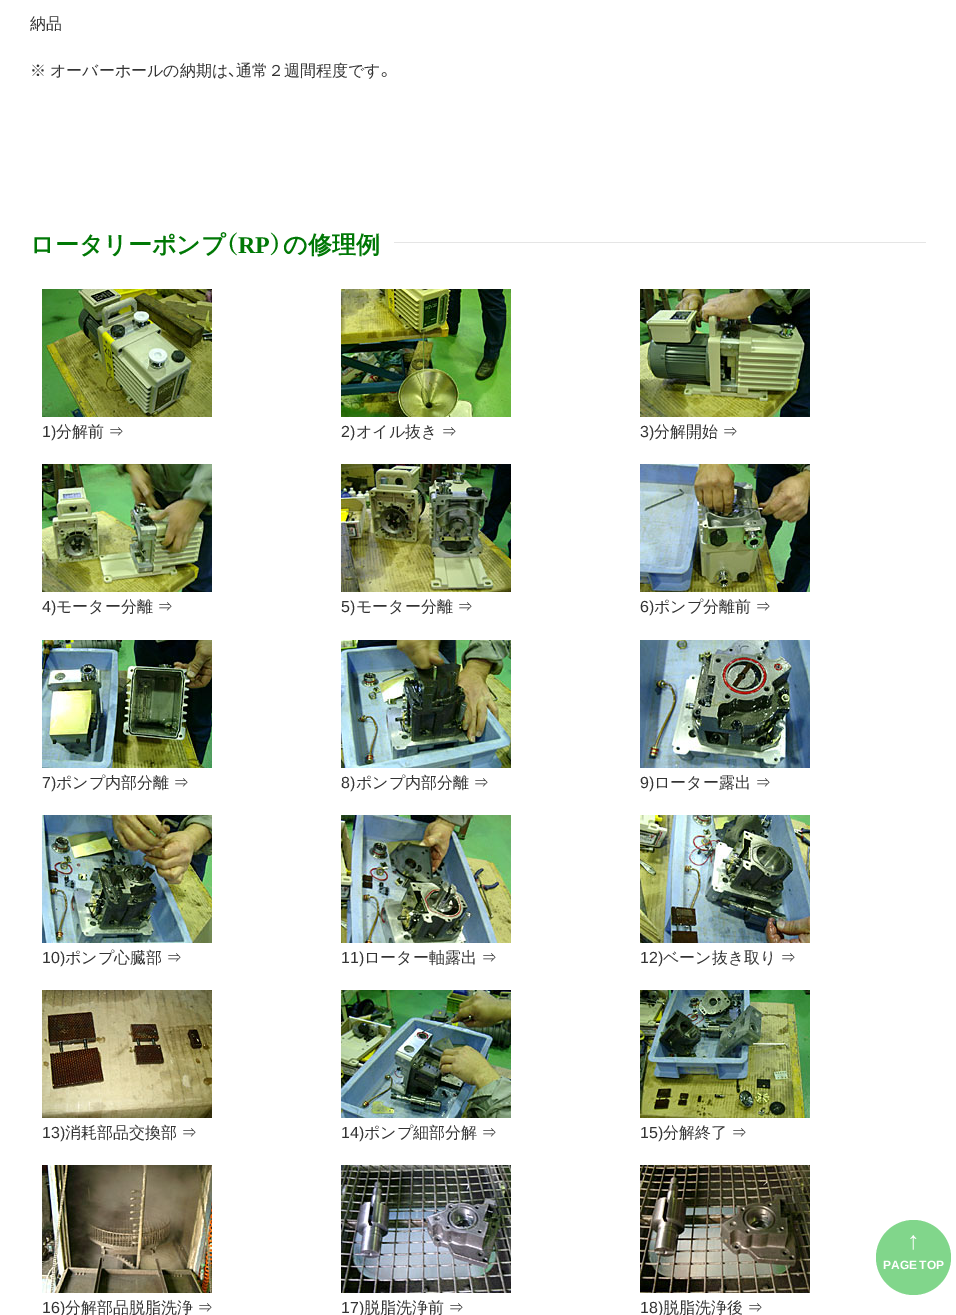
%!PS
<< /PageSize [956 1315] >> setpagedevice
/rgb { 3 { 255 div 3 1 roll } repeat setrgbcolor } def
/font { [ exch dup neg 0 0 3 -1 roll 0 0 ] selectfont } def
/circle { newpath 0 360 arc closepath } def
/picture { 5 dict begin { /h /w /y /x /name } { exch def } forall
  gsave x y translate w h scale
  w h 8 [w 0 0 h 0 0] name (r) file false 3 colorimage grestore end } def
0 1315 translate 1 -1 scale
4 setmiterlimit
255 255 255 rgb
0 0 956 1315 rectfill
229 229 229 rgb
394 242 532 1 rectfill
(img/1.rgb) 42 289 170 128 picture
(img/2.rgb) 341 289 170 128 picture
(img/3.rgb) 640 289 170 128 picture
(img/4.rgb) 42 464 170 128 picture
(img/5.rgb) 341 464 170 128 picture
(img/6.rgb) 640 464 170 128 picture
(img/7.rgb) 42 640 170 128 picture
(img/8.rgb) 341 640 170 128 picture
(img/9.rgb) 640 640 170 128 picture
(img/10.rgb) 42 815 170 128 picture
(img/11.rgb) 341 815 170 128 picture
(img/12.rgb) 640 815 170 128 picture
(img/13.rgb) 42 990 170 128 picture
(img/14.rgb) 341 990 170 128 picture
(img/15.rgb) 640 990 170 128 picture
(img/16.rgb) 42 1165 170 128 picture
(img/17.rgb) 341 1165 170 128 picture
(img/18.rgb) 640 1165 170 128 picture
129 214 139 rgb
913.5 1257.5 37.5 circle fill
/WenQuanYiZenHei-Medium 16 font
51 51 51 rgb
30 29 moveto (納品) show
30 76 moveto -1 0 32 (※ オーバーホールの納期は) widthshow
/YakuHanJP-Regular 16 font
228 76 moveto (、) show
/WenQuanYiZenHei-Medium 16 font
236 76 moveto (通常２週間程度です) show
/YakuHanJP-Regular 16 font
381 76 moveto (。) show
/WenQuanYiZenHei-Bold 24 font
0 120 5 rgb
30 253 moveto (ロータリーポンプ) show
/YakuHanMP-Bold 24 font
225 253 moveto (（) show
/LiberationSerif-Bold 24 font
238 253 moveto (RP) show
/YakuHanMP-Bold 24 font
270 253 moveto (）) show
/WenQuanYiZenHei-Bold 24 font
283 253 moveto (の修理例) show
/LiberationSans-Regular 16 font
51 51 51 rgb
42 437 moveto (1\)) show
/WenQuanYiZenHei-Medium 16 font
56 437 moveto -1 0 32 (分解前 ⇒) widthshow
/LiberationSans-Regular 16 font
341 437 moveto (2\)) show
/WenQuanYiZenHei-Medium 16 font
356 437 moveto -1 0 32 (オイル抜き ⇒) widthshow
/LiberationSans-Regular 16 font
640 437 moveto (3\)) show
/WenQuanYiZenHei-Medium 16 font
654 437 moveto -1 0 32 (分解開始 ⇒) widthshow
/LiberationSans-Regular 16 font
42 612 moveto (4\)) show
/WenQuanYiZenHei-Medium 16 font
56 612 moveto -1 0 32 (モーター分離 ⇒) widthshow
/LiberationSans-Regular 16 font
341 612 moveto (5\)) show
/WenQuanYiZenHei-Medium 16 font
356 612 moveto -1 0 32 (モーター分離 ⇒) widthshow
/LiberationSans-Regular 16 font
640 612 moveto (6\)) show
/WenQuanYiZenHei-Medium 16 font
654 612 moveto -1 0 32 (ポンプ分離前 ⇒) widthshow
/LiberationSans-Regular 16 font
42 788 moveto (7\)) show
/WenQuanYiZenHei-Medium 16 font
56 788 moveto -1 0 32 (ポンプ内部分離 ⇒) widthshow
/LiberationSans-Regular 16 font
341 788 moveto (8\)) show
/WenQuanYiZenHei-Medium 16 font
356 788 moveto -1 0 32 (ポンプ内部分離 ⇒) widthshow
/LiberationSans-Regular 16 font
640 788 moveto (9\)) show
/WenQuanYiZenHei-Medium 16 font
654 788 moveto -1 0 32 (ローター露出 ⇒) widthshow
/LiberationSans-Regular 16 font
42 963 moveto (10\)) show
/WenQuanYiZenHei-Medium 16 font
65 963 moveto -1 0 32 (ポンプ心臓部 ⇒) widthshow
/LiberationSans-Regular 16 font
341 963 moveto (11\)) show
/WenQuanYiZenHei-Medium 16 font
364 963 moveto -1 0 32 (ローター軸露出 ⇒) widthshow
/LiberationSans-Regular 16 font
640 963 moveto (12\)) show
/WenQuanYiZenHei-Medium 16 font
663 963 moveto -1 0 32 (ベーン抜き取り ⇒) widthshow
/LiberationSans-Regular 16 font
42 1138 moveto (13\)) show
/WenQuanYiZenHei-Medium 16 font
65 1138 moveto -1 0 32 (消耗部品交換部 ⇒) widthshow
/LiberationSans-Regular 16 font
341 1138 moveto (14\)) show
/WenQuanYiZenHei-Medium 16 font
364 1138 moveto -1 0 32 (ポンプ細部分解 ⇒) widthshow
/LiberationSans-Regular 16 font
640 1138 moveto (15\)) show
/WenQuanYiZenHei-Medium 16 font
663 1138 moveto -1 0 32 (分解終了 ⇒) widthshow
/LiberationSans-Regular 16 font
42 1313 moveto (16\)) show
/WenQuanYiZenHei-Medium 16 font
65 1313 moveto -1 0 32 (分解部品脱脂洗浄 ⇒) widthshow
/LiberationSans-Regular 16 font
341 1313 moveto (17\)) show
/WenQuanYiZenHei-Medium 16 font
364 1313 moveto -1 0 32 (脱脂洗浄前 ⇒) widthshow
/LiberationSans-Regular 16 font
640 1313 moveto (18\)) show
/WenQuanYiZenHei-Medium 16 font
663 1313 moveto -1 0 32 (脱脂洗浄後 ⇒) widthshow
/LiberationSans-Regular 25 font
255 255 255 rgb
907 1249 moveto (↑) show
/LiberationSans-Bold 12 font
883 1269 moveto -1 0 32 (PAGE TOP) widthshow
showpage
